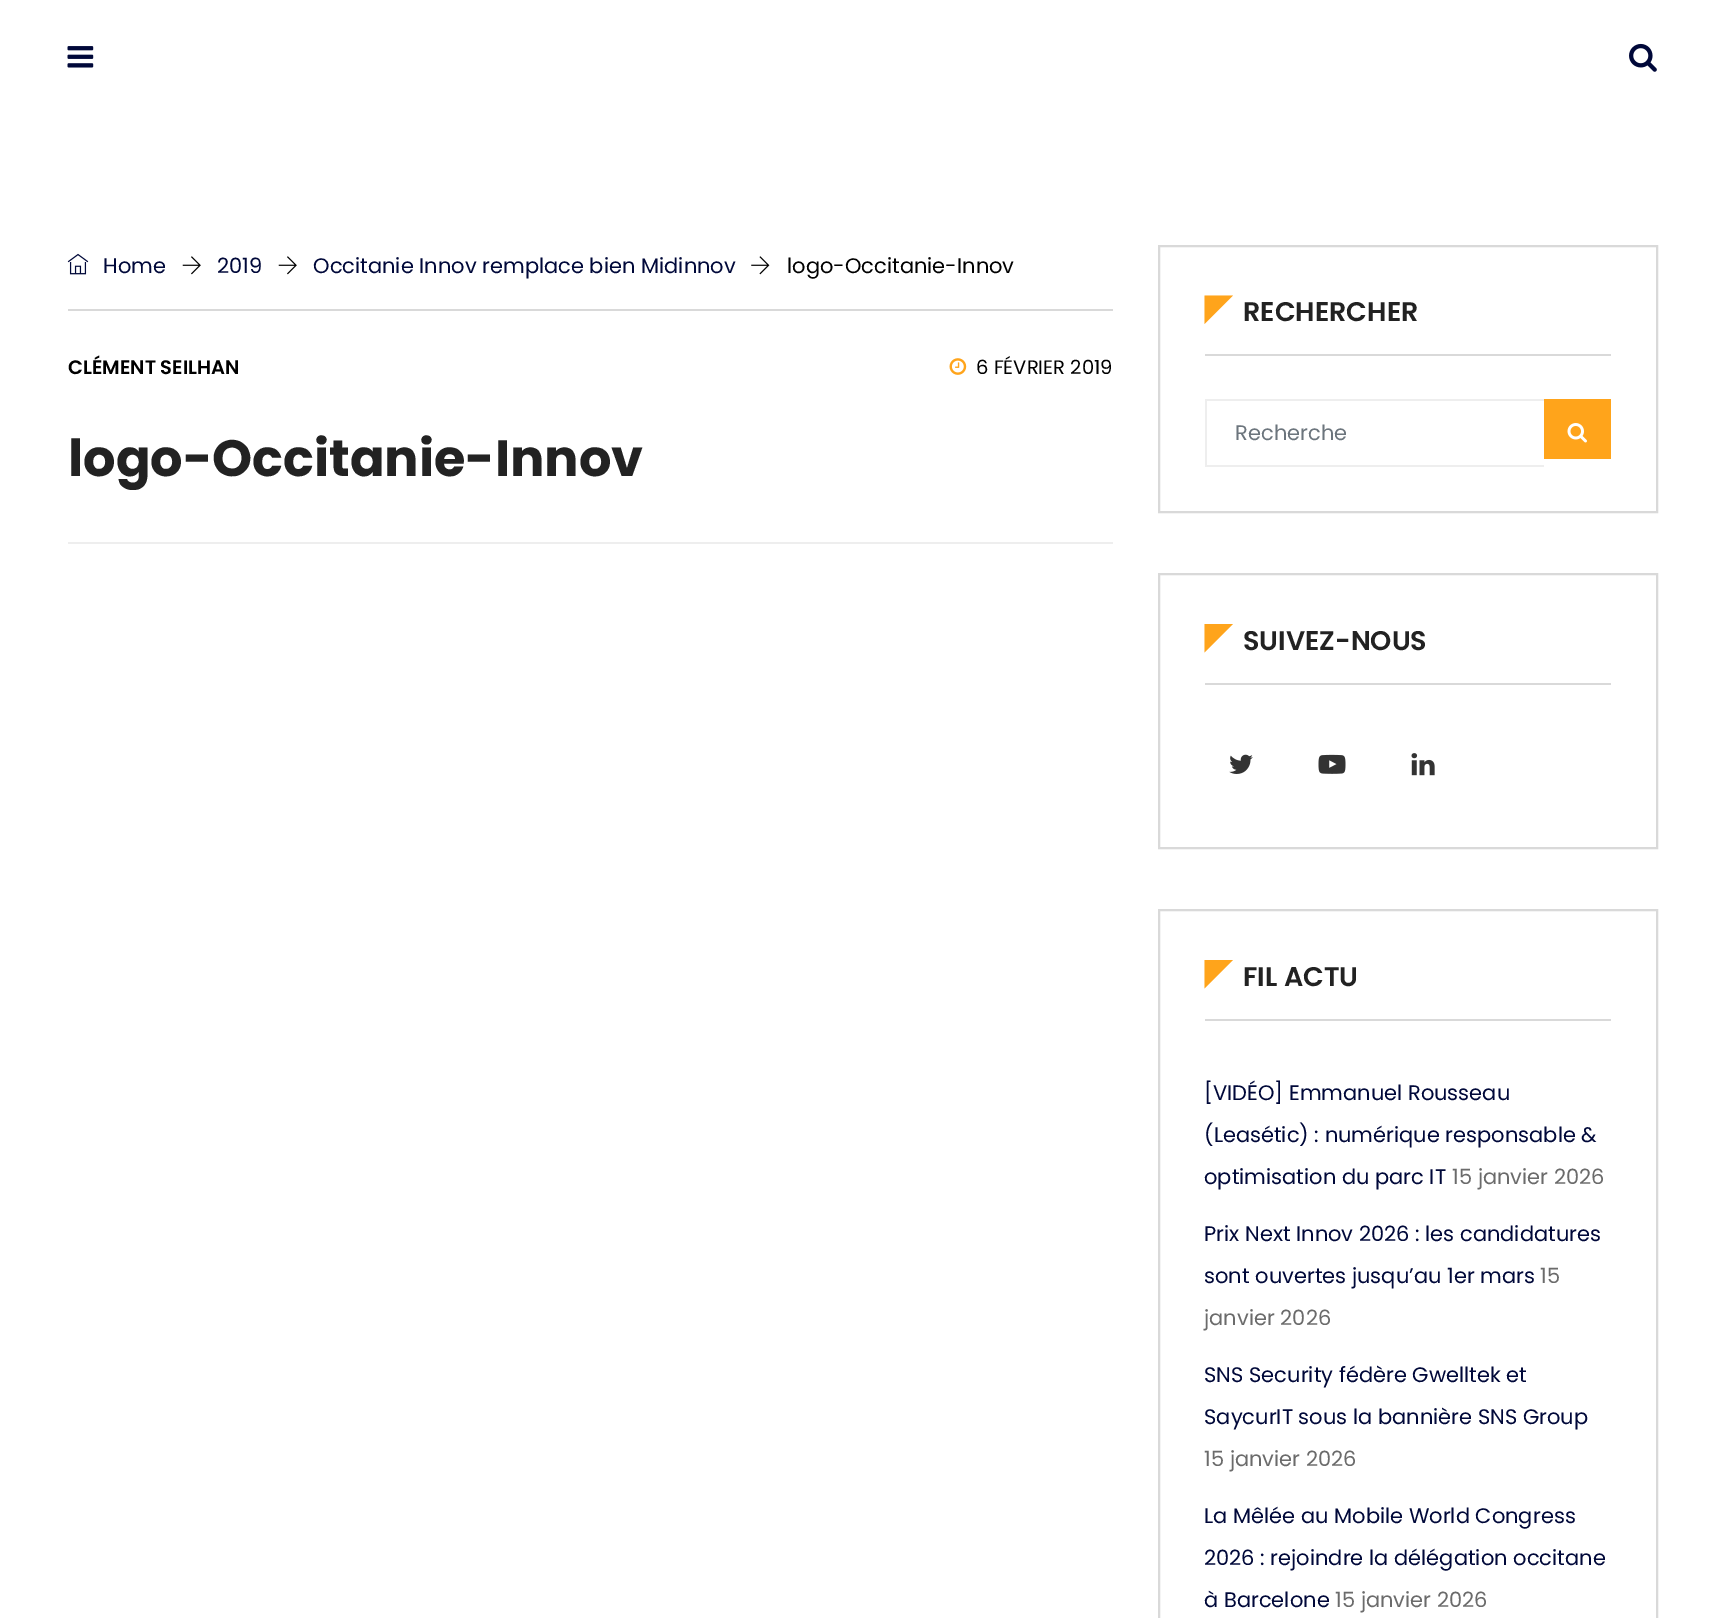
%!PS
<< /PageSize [1725 1618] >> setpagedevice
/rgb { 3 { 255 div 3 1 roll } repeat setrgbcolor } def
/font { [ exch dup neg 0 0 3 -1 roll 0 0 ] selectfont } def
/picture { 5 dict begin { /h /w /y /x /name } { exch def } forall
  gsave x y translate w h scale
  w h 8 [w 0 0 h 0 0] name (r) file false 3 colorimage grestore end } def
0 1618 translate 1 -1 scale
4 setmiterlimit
255 255 255 rgb
0 0 1725 1618 rectfill
(img/1.rgb) 67 46 27 22 picture
(img/2.rgb) 1629 43 28 29 picture
(img/3.rgb) 67 253 22 22 picture
(img/4.rgb) 182 256 19 19 picture
(img/4.rgb) 278 256 19 19 picture
(img/5.rgb) 751 256 19 19 picture
217 217 217 rgb
68 309 1045 2 rectfill
(img/6.rgb) 949 358 18 17 picture
238 238 238 rgb
68 542 1045 2 rectfill
217 217 217 rgb
2 setlinewidth
1159 246 498 266 rectstroke
255 164 27 rgb
1204.5 295.5 moveto 1233 295.5 lineto 1204.5 324 lineto closepath fill
[
  [1205 354 406 2 217 217 217]
  [1205 399 339 2 238 238 238]
  [1205 465 339 2 238 238 238]
  [1205 399 2 68 238 238 238]
  [1544 399 67 60 255 164 27]
] { aload pop rgb rectfill } forall
(img/7.rgb) 1567 423 20 20 picture
217 217 217 rgb
1159 574 498 274 rectstroke
255 164 27 rgb
1204.5 624 moveto 1233 624 lineto 1204.5 652.5 lineto closepath fill
217 217 217 rgb
1205 683 406 2 rectfill
(img/8.rgb) 1229 754 24 20 picture
(img/9.rgb) 1318 754 28 20 picture
(img/10.rgb) 1411 753 24 23 picture
1159 910 498 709 rectstroke
255 164 27 rgb
1204.5 960 moveto 1233 960 lineto 1204.5 988.5 lineto closepath fill
217 217 217 rgb
1205 1019 406 2 rectfill
/Poppins-Regular 21 font
0 8 57 rgb
[
  [(Home) 103 273]
  [(2019) 217 273]
  [(Occitanie Innov remplace bien Midinnov) 313 273]
] { aload pop moveto show } forall
0 0 0 rgb
787 273 moveto (logo-Occitanie-Innov) show
/Poppins-SemiBold 19.5 font
68 374 moveto (CLÉMENT SEILHAN) show
/Poppins-Regular 19.5 font
976 374 moveto (6 FÉVRIER 2019) show
/Poppins-Bold 51 font
34 34 34 rgb
68 476 moveto (logo-Occitanie-Innov) show
/Poppins-SemiBold 27 font
1243 321 moveto (RECHERCHER) show
/Poppins-Regular 21 font
108 117 125 rgb
1235 440 moveto (Recherche) show
/Poppins-SemiBold 27 font
34 34 34 rgb
1243 650 moveto (SUIVEZ-NOUS) show
1243 986 moveto (FIL ACTU) show
/Poppins-Regular 21 font
0 8 57 rgb
[
  [([VIDÉO] Emmanuel Rousseau) 1204 1100]
  [(\(Leasétic\) : numérique responsable &) 1204 1142]
  [(optimisation du parc IT) 1204 1184]
] { aload pop moveto show } forall
107 107 107 rgb
1452 1184 moveto (15 janvier 2026) show
0 8 57 rgb
1204 1241 moveto (Prix Next Innov 2026 : les candidatures) show
1204 1283 moveto (sont ouvertes jusqu’au 1er mars) show
107 107 107 rgb
1540 1283 moveto (15) show
1204 1325 moveto (janvier 2026) show
0 8 57 rgb
1204 1382 moveto (SNS Security fédère Gwelltek et) show
1204 1424 moveto (SaycurIT sous la bannière SNS Group) show
107 107 107 rgb
1204 1466 moveto (15 janvier 2026) show
0 8 57 rgb
[
  [(La Mêlée au Mobile World Congress) 1204 1523]
  [(2026 : rejoindre la délégation occitane) 1204 1565]
  [(à Barcelone) 1204 1607]
] { aload pop moveto show } forall
107 107 107 rgb
1335 1607 moveto (15 janvier 2026) show
showpage
